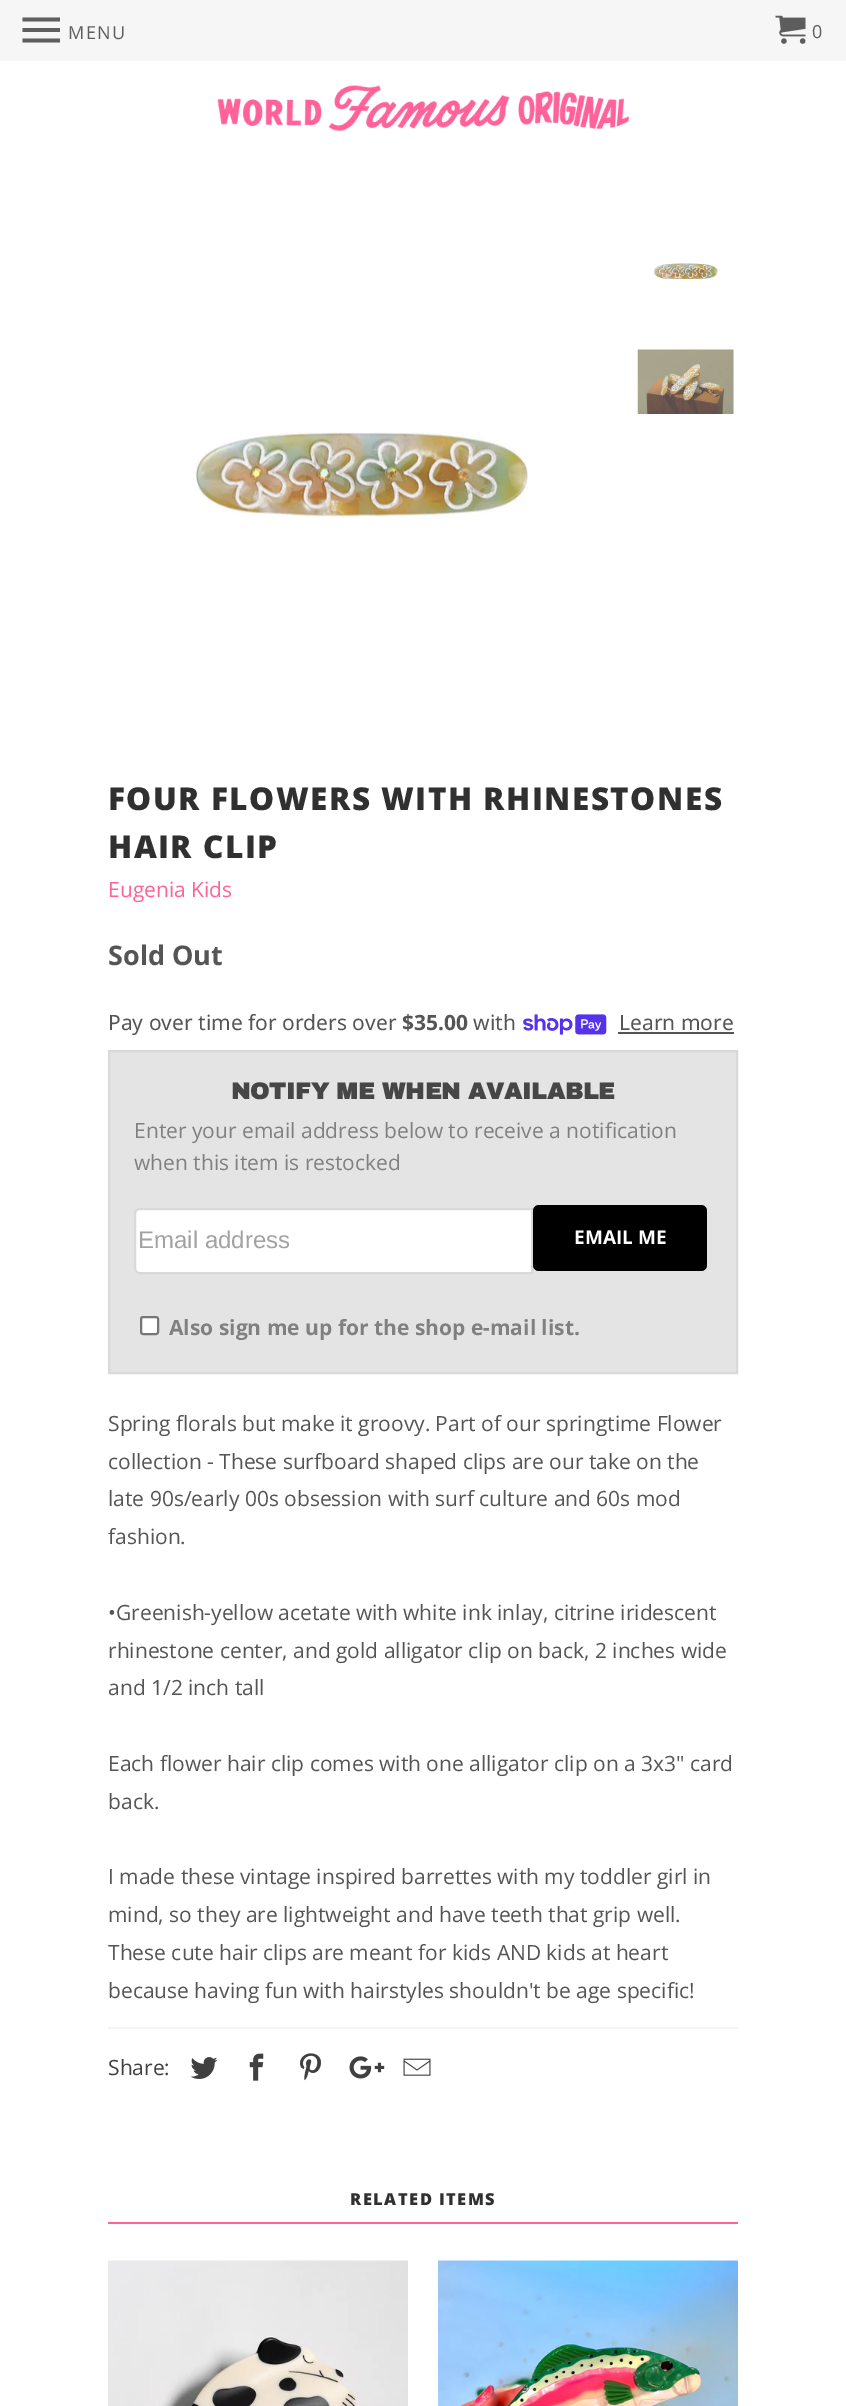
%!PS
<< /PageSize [846 2406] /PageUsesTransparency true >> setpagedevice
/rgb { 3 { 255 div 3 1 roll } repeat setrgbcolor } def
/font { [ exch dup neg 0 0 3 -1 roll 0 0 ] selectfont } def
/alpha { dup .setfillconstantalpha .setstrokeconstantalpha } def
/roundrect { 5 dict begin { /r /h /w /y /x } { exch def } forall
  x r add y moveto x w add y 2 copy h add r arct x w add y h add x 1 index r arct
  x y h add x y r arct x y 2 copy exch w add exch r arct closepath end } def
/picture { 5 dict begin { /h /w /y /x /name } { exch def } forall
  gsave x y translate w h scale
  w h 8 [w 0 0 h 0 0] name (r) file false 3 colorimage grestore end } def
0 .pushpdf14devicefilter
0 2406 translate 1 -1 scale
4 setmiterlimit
255 255 255 rgb
0 0 846 2406 rectfill
246 246 246 rgb
0 0 846 59 rectfill
245 246 246 rgb
0 59 846 2 rectfill
94 94 94 rgb
22.5 42.5 moveto 60 42.5 lineto 60 38.5 lineto 22.5 38.5 lineto closepath 22.5 32 moveto 60 32 lineto 60 28 lineto 22.5 28 lineto closepath 22.5 17.5 moveto 22.5 21.5 lineto 60 21.5 lineto 60 17.5 lineto closepath fill
(img/1.rgb) 775 15 31 29 picture
(img/2.rgb) 217 85 413 47 picture
(img/3.rgb) 654 263 64 17 picture
(img/4.rgb) 637 349 97 65 picture
(img/5.rgb) 195 432 333 87 picture
(img/6.rgb) 523 1014 84 21 picture
85 85 85 rgb
618 1032 116 2 rectfill
228 228 228 rgb
109 1051 moveto 737 1051 lineto 737 1373 lineto 109 1373 lineto closepath gsave fill grestore
217 217 217 rgb
2 setlinewidth
stroke
255 255 255 rgb
140 1209 moveto 532 1209 lineto 532 1273 lineto 140 1273 lineto 137 1273 135 1271 135 1268 curveto 135 1214 lineto 135 1211 137 1209 140 1209 curveto closepath gsave fill grestore
217 217 217 rgb
stroke
0 0 0 rgb
533 1205 174 66 6 roundrect fill
0.1 alpha
533 1263 moveto 533 1265 lineto 533 1268 536 1271 539 1271 curveto 701 1271 lineto 704 1271 707 1268 707 1265 curveto 707 1211 lineto 707 1210 707 1209 706 1208 curveto 706 1260 lineto 706 1263 704 1266 700 1266 curveto 538 1266 lineto 536 1266 534 1265 533 1263 curveto closepath fill
1 alpha
255 255 255 rgb
141 1317 17 17 2 roundrect gsave fill grestore
118 118 118 rgb
stroke
244 245 245 rgb
108 2027 630 2 rectfill
(img/7.rgb) 190 2057 28 22 picture
(img/8.rgb) 249 2053 15 28 picture
(img/9.rgb) 300 2053 21 28 picture
(img/10.rgb) 349 2056 36 23 picture
(img/11.rgb) 403 2058 28 18 picture
255 98 153 rgb
108 2222 630 2 rectfill
(img/12.rgb) 108 2260 300 146 picture
(img/13.rgb) 438 2260 300 146 picture
/OpenSans-Regular 18 font
94 94 94 rgb
68 39 moveto 1.5 0 (MENU) ashow
812 38 moveto 1.5 0 (0) ashow
/OpenSans-ExtraBold 31.5 font
48 48 48 rgb
108 810 moveto 1.5 0 (FOUR FLOWERS WITH RHINESTONES) ashow
108 858 moveto 1.5 0 (HAIR CLIP) ashow
/OpenSans-Regular 21 font
255 98 153 rgb
108 897 moveto (Eugenia Kids) show
/OpenSans-Bold 27 font
85 85 85 rgb
108 965 moveto (Sold Out) show
/NotoSans-Regular 21 font
108 1030 moveto (Pay over time for orders over) show
/NotoSans-Bold 21 font
402 1030 moveto ($35.00) show
/NotoSans-Regular 21 font
473 1030 moveto (with) show
619 1030 moveto (Learn more) show
/ArchivoBlack-Bold 23.1 font
70 70 70 rgb
231 1099 moveto (NOTIFY ME WHEN AVAILABLE) show
/OpenSans-Regular 21 font
128 128 128 rgb
134 1138 moveto (Enter your email address below to receive a notification) show
134 1170 moveto (when this item is restocked) show
/LiberationSans-Regular 24 font
164 161 161 rgb
138 1248 moveto (Email address) show
/OpenSans-Bold 19 font
255 255 255 rgb
574 1244 moveto (EMAIL ME) show
/OpenSans-Bold 21 font
128 128 128 rgb
169 1335 moveto (Also sign me up for the shop e-mail list.) show
/OpenSans-Regular 21 font
85 85 85 rgb
[
  [(Spring florals but make it groovy. Part of our springtime Flower) 108 1431]
  [(collection - These surfboard shaped clips are our take on the) 108 1469]
  [(late 90s/early 00s obsession with surf culture and 60s mod) 108 1506]
  [(fashion.) 108 1544]
  [(•Greenish-yellow acetate with white ink inlay, citrine iridescent) 108 1620]
  [(rhinestone center, and gold alligator clip on back, 2 inches wide) 108 1658]
  [(and 1/2 inch tall) 108 1695]
  [(Each flower hair clip comes with one alligator clip on a 3x3" card) 108 1771]
  [(back.) 108 1809]
  [(I made these vintage inspired barrettes with my toddler girl in) 108 1884]
  [(mind, so they are lightweight and have teeth that grip well.) 108 1922]
  [(These cute hair clips are meant for kids AND kids at heart) 108 1960]
  [(because having fun with hairstyles shouldn't be age specific!) 108 1998]
] { aload pop moveto show } forall
64 64 64 rgb
108 2075 moveto (Share:) show
/OpenSans-ExtraBold 16.5 font
48 48 48 rgb
350 2205 moveto 1.5 0 (RELATED ITEMS) ashow
.poppdf14devicefilter showpage
